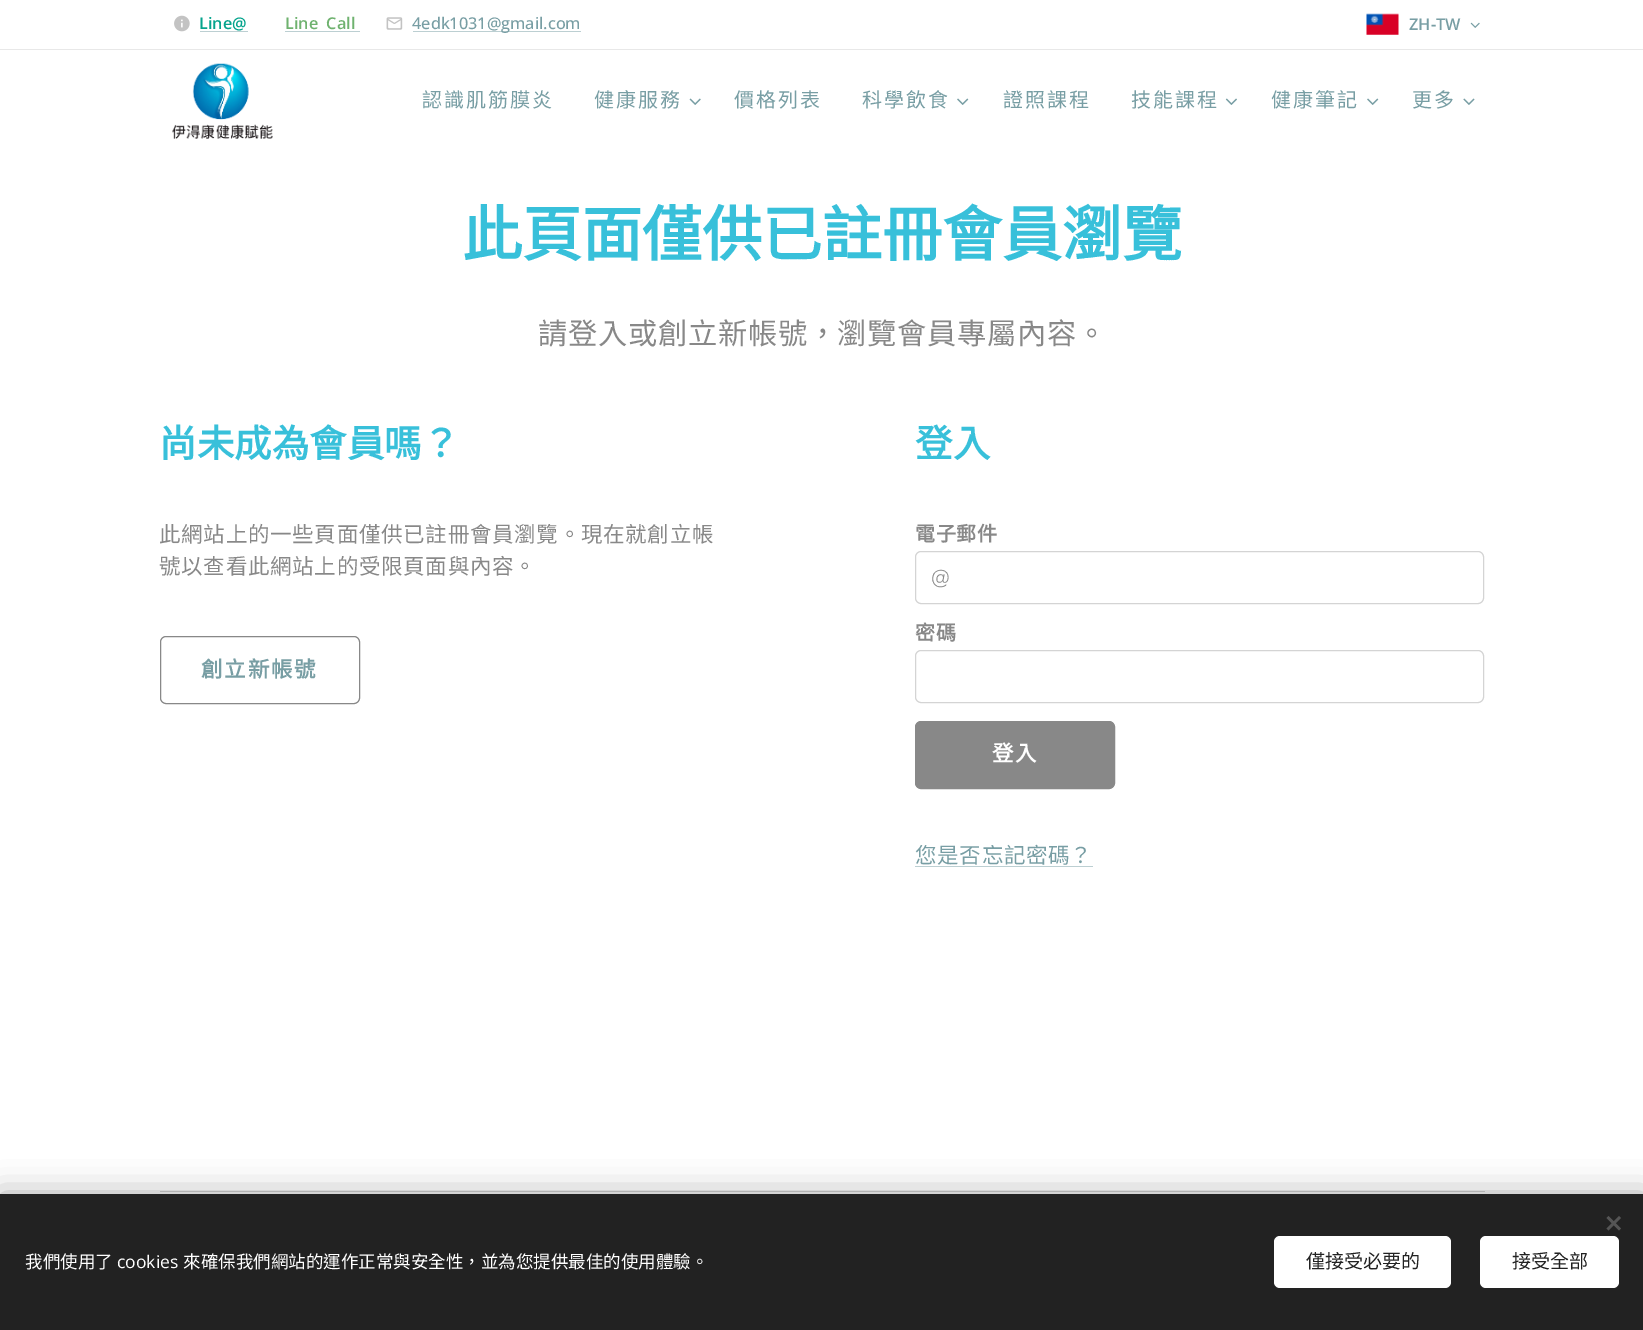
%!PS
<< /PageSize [1643 1330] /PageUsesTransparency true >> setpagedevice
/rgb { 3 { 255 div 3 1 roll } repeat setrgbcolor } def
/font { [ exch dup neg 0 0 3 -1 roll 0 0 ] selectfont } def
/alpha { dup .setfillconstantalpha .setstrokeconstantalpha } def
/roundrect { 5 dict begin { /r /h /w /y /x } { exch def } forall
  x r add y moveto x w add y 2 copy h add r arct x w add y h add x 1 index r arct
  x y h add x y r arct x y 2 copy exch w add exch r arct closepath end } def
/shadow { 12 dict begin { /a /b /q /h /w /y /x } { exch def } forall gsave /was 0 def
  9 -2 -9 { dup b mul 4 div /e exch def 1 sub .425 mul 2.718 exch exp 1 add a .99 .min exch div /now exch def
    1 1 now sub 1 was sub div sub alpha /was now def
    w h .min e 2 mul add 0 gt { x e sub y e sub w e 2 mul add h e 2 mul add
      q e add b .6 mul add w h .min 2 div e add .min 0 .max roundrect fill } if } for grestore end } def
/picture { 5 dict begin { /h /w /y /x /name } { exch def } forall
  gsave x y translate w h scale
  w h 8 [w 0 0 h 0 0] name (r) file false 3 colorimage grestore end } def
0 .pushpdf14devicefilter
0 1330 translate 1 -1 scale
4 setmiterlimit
255 255 255 rgb
0 0 1643 1330 rectfill
(img/1.rgb) 174 15 16 17 picture
188 207 210 rgb
200 31 48 1 rectfill
285 31 75 1 rectfill
(img/2.rgb) 386 17 17 13 picture
413 31 168 1 rectfill
(img/3.rgb) 1366 13 33 22 picture
(img/4.rgb) 1470 22 10 6 picture
232 232 232 rgb
0 49 1643 1 rectfill
(img/5.rgb) 172 63 101 76 picture
(img/6.rgb) 689 98 12 7 picture
(img/7.rgb) 957 98 12 7 picture
(img/8.rgb) 1225 98 12 7 picture
(img/7.rgb) 1367 98 12 7 picture
(img/9.rgb) 1463 98 12 7 picture
136 136 136 rgb
160.5 636.5 199 67 5.5 roundrect stroke
212 212 212 rgb
915.5 551.5 568 52 5.5 roundrect stroke
915.5 650.5 568 52 5.5 roundrect stroke
136 136 136 rgb
915.5 721.5 199 67 5.5 roundrect gsave fill grestore
stroke
188 207 210 rgb
915 866 178 1 rectfill
212 212 212 rgb
160 1191 1325 1 rectfill
0 0 0 rgb
0 1194 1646 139 0 15.5 0.33 shadow
34 34 34 rgb
0 1194 1643 136 rectfill
85 85 85 rgb
1606.5 1228.5 moveto 1619 1216 lineto 1621 1218 lineto 1608.5 1230.5 lineto closepath fill
1608.5 1216 moveto 1621 1228.5 lineto 1619 1230.5 lineto 1606.5 1218 lineto closepath fill
255 255 255 rgb
1274 1236 177 52 6 roundrect fill
1480 1236 139 52 6 roundrect fill
/OpenSans-SemiBold 16.25 font
6 164 141 rgb
199 29 moveto (Line@) show
111 178 111 rgb
285 29 moveto (Line  Call) show
/OpenSans-Medium 16.25 font
120 158 164 rgb
412 29 moveto (4edk1031@gmail.com) show
/OpenSans-SemiBold 16.25 font
1409 30 moveto (ZH-TW) show
/NotoSansCJKTC-Regular 20 font
422 107 moveto 2 0 (認識肌筋膜炎) ashow
594 107 moveto 2 0 (健康服務) ashow
734 107 moveto 2 0 (價格列表) ashow
862 107 moveto 2 0 (科學飲食) ashow
1003 107 moveto 2 0 (證照課程) ashow
1131 107 moveto 2 0 (技能課程) ashow
1271 107 moveto 2 0 (健康筆記) ashow
1412 107 moveto 2 0 (更多) ashow
/NotoSansCJKTC-Bold 60 font
56 192 218 rgb
462 256 moveto (此頁面僅供已註冊會員瀏覽) show
/NotoSansCJKTC-Regular 29.25 font
136 136 136 rgb
538 344 moveto 0.7 0 (請登入或創立新帳號，瀏覽會員專屬內容。) ashow
/NotoSansCJKTC-Bold 37.5 font
56 192 218 rgb
159 457 moveto (尚未成為會員嗎？) show
/NotoSansCJKTC-Regular 21.5 font
136 136 136 rgb
159 542 moveto 0.7 0 (此網站上的一些頁面僅供已註冊會員瀏覽。現在就創立帳) ashow
159 574 moveto 0.7 0 (號以查看此網站上的受限頁面與內容。) ashow
/NotoSansCJKTC-Bold 21.5 font
120 158 164 rgb
201 677 moveto 1.75 0 (創立新帳號) ashow
/NotoSansCJKTC-Bold 37.5 font
56 192 218 rgb
915 457 moveto (登入) show
/NotoSansCJKTC-Bold 20 font
136 136 136 rgb
915 541 moveto 0.7 0 (電子郵件) ashow
/Nunito-Light 20 font
931 584 moveto (@) show
/NotoSansCJKTC-Bold 20 font
915 640 moveto 0.7 0 (密碼) ashow
/NotoSansCJKTC-Bold 21.5 font
255 255 255 rgb
992 761 moveto 1.75 0 (登入) ashow
/NotoSansCJKTC-Regular 21.5 font
120 158 164 rgb
915 863 moveto 0.7 0 (您是否忘記密碼？) ashow
/NotoSansCJKTC-Regular 17.5 font
255 255 255 rgb
25 1268 moveto (我們使用了) show
/OpenSans-Regular 17.5 font
117 1268 moveto (cookies) show
/NotoSansCJKTC-Regular 17.5 font
183 1268 moveto (來確保我們網站的運作正常與安全性，並為您提供最佳的使用體驗。) show
/NotoSansCJKTC-Regular 19 font
34 34 34 rgb
1306 1268 moveto (僅接受必要的) show
1512 1268 moveto (接受全部) show
.poppdf14devicefilter showpage
